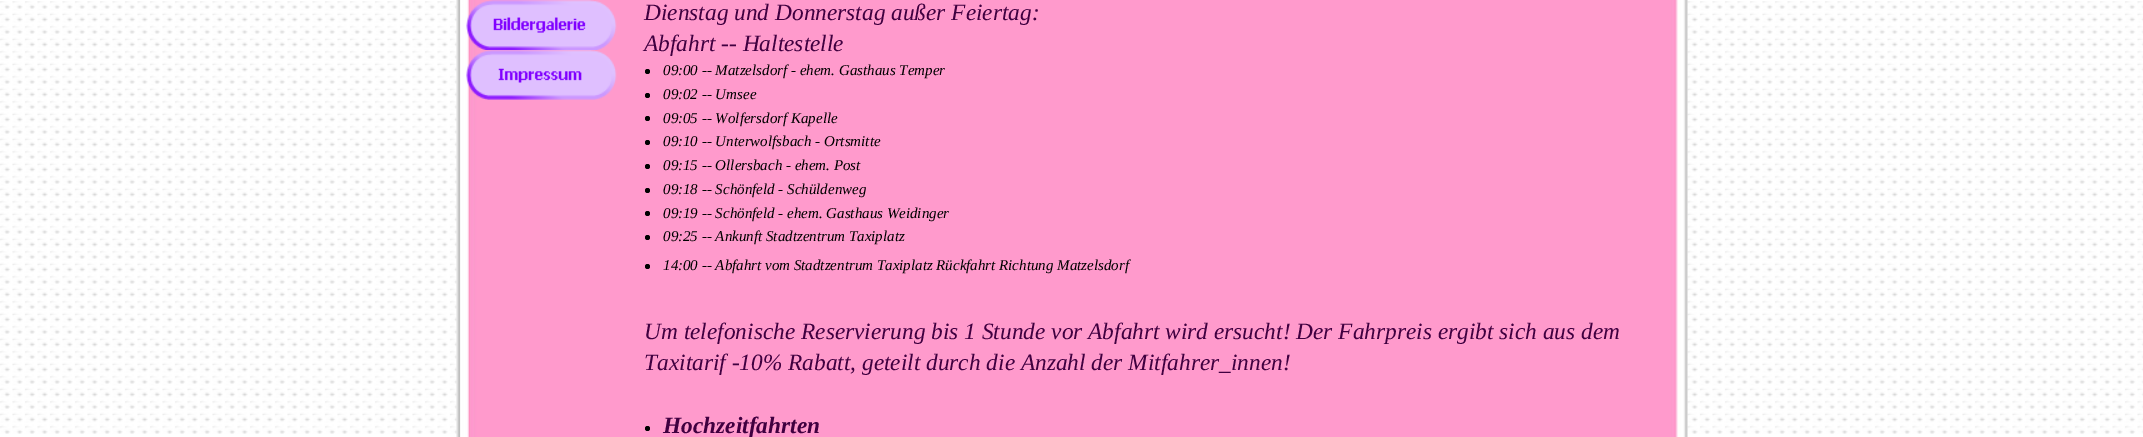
%!PS
<< /PageSize [2143 437] >> setpagedevice
/rgb { 3 { 255 div 3 1 roll } repeat setrgbcolor } def
/font { [ exch dup neg 0 0 3 -1 roll 0 0 ] selectfont } def
/circle { newpath 0 360 arc closepath } def
/picture { 5 dict begin { /h /w /y /x /name } { exch def } forall
  gsave x y translate w h scale
  w h 8 [w 0 0 h 0 0] name (r) file false 3 colorimage grestore end } def
0 437 translate 1 -1 scale
4 setmiterlimit
255 255 255 rgb
0 0 2143 437 rectfill
(img/1.rgb) 0 1 2143 433 picture
(img/2.rgb) 456 0 175 437 picture
(img/3.rgb) 466 0 151 50 picture
(img/4.rgb) 466 50 151 50 picture
(img/5.rgb) 631 0 1057 437 picture
0 0 0 rgb
647.5 71.5 2.5 circle fill
647.5 95.5 2.5 circle fill
647.5 118.5 2.5 circle fill
647.5 142.5 2.5 circle fill
647.5 166.5 2.5 circle fill
647.5 190.5 2.5 circle fill
647.5 213.5 2.5 circle fill
647.5 237.5 2.5 circle fill
647.5 266.5 2.5 circle fill
647.5 428.5 2.5 circle fill
/LiberationSerif-Italic 23.35 font
64 0 64 rgb
644 20 moveto (Dienstag und Donnerstag außer Feiertag:) show
644 51 moveto (Abfahrt -- Haltestelle) show
/LiberationSerif-Italic 15 font
0 0 0 rgb
[
  [(09:00 -- Matzelsdorf - ehem. Gasthaus Temper) 663 75]
  [(09:02 -- Umsee) 663 99]
  [(09:05 -- Wolfersdorf Kapelle) 663 123]
  [(09:10 -- Unterwolfsbach - Ortsmitte) 663 146]
  [(09:15 -- Ollersbach - ehem. Post) 663 170]
  [(09:18 -- Schönfeld - Schüldenweg) 663 194]
  [(09:19 -- Schönfeld - ehem. Gasthaus Weidinger) 663 218]
  [(09:25 -- Ankunft Stadtzentrum Taxiplatz) 663 241]
  [(14:00 -- Abfahrt vom Stadtzentrum Taxiplatz Rückfahrt Richtung Matzelsdorf) 663 270]
] { aload pop moveto show } forall
/LiberationSerif-Italic 23.35 font
64 0 64 rgb
644 339 moveto (Um telefonische Reservierung bis 1 Stunde vor Abfahrt wird ersucht! Der Fahrpreis ergibt sich aus dem) show
644 370 moveto (Taxitarif -10% Rabatt, geteilt durch die Anzahl der Mitfahrer_innen!) show
/LiberationSerif-BoldItalic 23.35 font
663 433 moveto (Hochzeitfahrten) show
showpage
